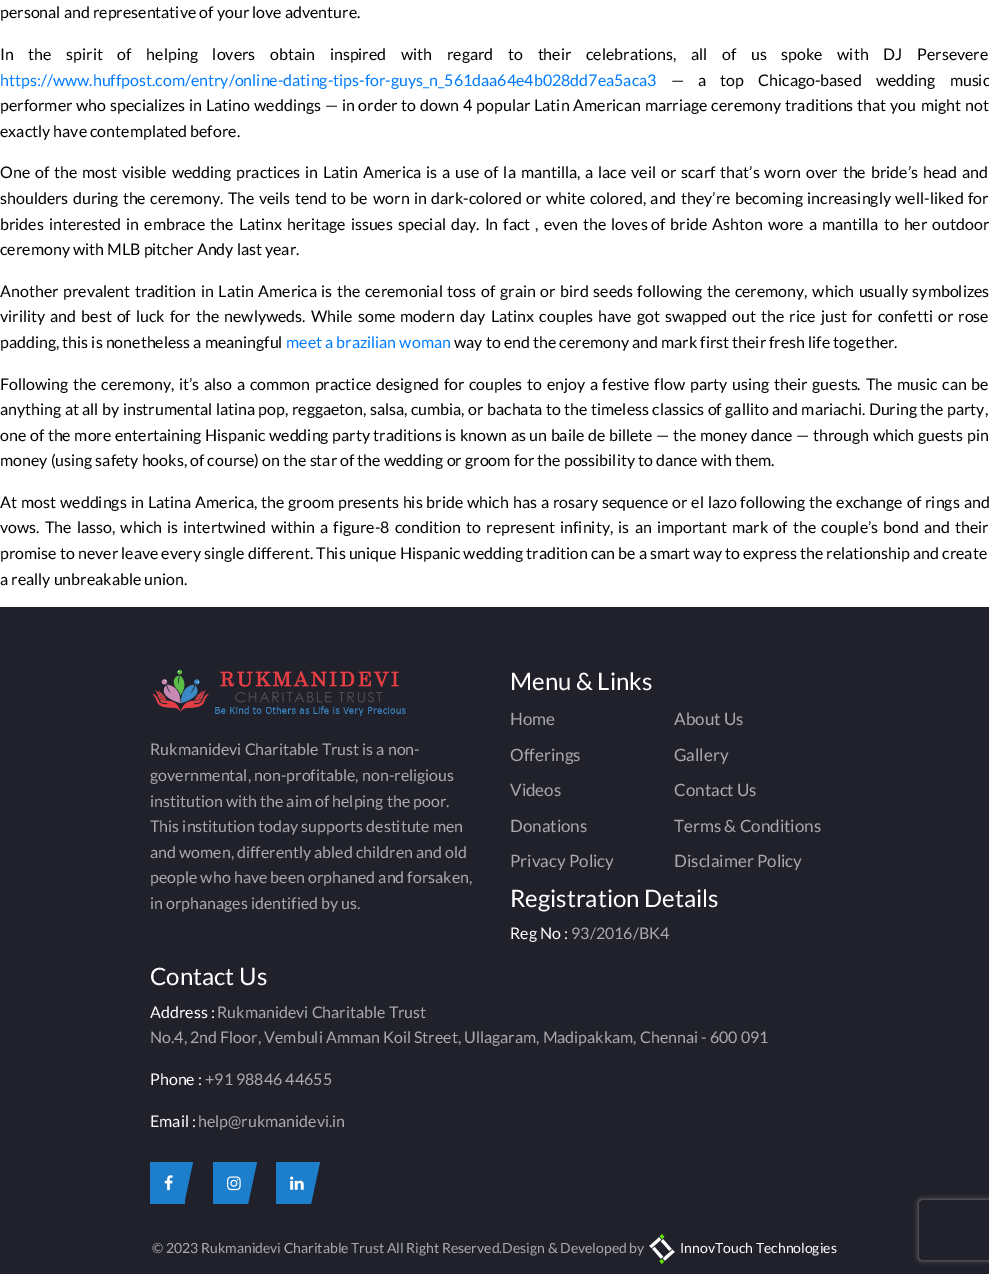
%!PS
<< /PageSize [989 1274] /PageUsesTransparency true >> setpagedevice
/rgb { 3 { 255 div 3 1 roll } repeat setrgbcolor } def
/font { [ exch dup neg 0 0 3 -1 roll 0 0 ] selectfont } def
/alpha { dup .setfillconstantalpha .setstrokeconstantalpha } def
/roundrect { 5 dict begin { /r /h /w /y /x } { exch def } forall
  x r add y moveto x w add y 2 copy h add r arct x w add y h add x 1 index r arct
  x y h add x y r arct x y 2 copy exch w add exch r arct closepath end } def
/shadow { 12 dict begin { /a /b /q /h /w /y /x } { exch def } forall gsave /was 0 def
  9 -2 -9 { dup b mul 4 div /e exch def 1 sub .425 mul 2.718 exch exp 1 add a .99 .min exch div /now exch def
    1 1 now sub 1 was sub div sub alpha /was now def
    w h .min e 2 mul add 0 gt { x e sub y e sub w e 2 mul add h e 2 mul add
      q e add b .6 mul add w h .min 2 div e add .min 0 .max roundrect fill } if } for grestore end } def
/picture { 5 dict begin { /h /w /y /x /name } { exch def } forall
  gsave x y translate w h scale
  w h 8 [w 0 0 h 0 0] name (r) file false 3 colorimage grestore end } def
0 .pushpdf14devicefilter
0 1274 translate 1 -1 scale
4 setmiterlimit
255 255 255 rgb
0 0 989 1274 rectfill
32 33 43 rgb
0 607 989 667 rectfill
(img/1.rgb) 152 669 254 47 picture
29 127 204 rgb
150 1162 35 42 rectfill
158 1162 moveto 193 1162 lineto 184 1204 lineto 150 1204 lineto closepath fill
(img/2.rgb) 164 1175 9 16 picture
213 1162 9 42 rectfill
222 1162 moveto 257 1162 lineto 248 1204 lineto 213 1204 lineto closepath fill
(img/3.rgb) 227 1176 14 15 picture
276 1162 9 42 rectfill
285 1162 moveto 320 1162 lineto 311 1204 lineto 276 1204 lineto closepath fill
(img/4.rgb) 290 1176 14 14 picture
(img/5.rgb) 649 1234 26 30 picture
gsave
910 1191 moveto 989 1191 lineto 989 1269 lineto 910 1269 lineto closepath 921 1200 moveto 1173 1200 lineto 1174 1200 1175 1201 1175 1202 curveto 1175 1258 lineto 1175 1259 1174 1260 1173 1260 curveto 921 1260 lineto 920 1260 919 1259 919 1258 curveto 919 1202 lineto 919 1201 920 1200 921 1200 curveto closepath eoclip newpath
128 128 128 rgb
919 1200 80 60 2 2.5 1 shadow
grestore
/Lato-Regular 16 font
0 0 0 rgb
0 18 moveto (personal and representative of your love adventure.) show
0 60 moveto 11.6 0 32 (In the spirit of helping lovers) widthshow
270 60 moveto 11.6 0 32 (obtain inspired with regard to their celebrations, all of us spoke with DJ Persevere) widthshow
0 123 255 rgb
0 86 moveto (https://www.huffpost.com/entry/online-dating-tips-for-guys_n_561daa64e4b028dd7ea5aca3) show
0 0 0 rgb
671 86 moveto 11 0 32 (— a top Chicago-based wedding music) widthshow
0 111 moveto 0.8 0 32 (performer who specializes in Latino) widthshow
254 111 moveto 0.8 0 32 (weddings — in order to down 4 popular Latin American marriage ceremony traditions that you) widthshow
921 111 moveto 1 0 32 (might not) widthshow
0 137 moveto (exactly have contemplated before.) show
0 178 moveto 1.8 0 32 (One of the most visible wedding practices in Latin America is a use of la mantilla, a lace veil or scarf that’s worn over the bride’s head and) widthshow
0 204 moveto 1.25 0 32 (shoulders during the ceremony. The veils tend to be) widthshow
373 204 moveto 1.25 0 32 (worn in dark-colored or white colored, and they’re becoming increasingly well-liked) widthshow
968 204 moveto (for) show
0 230 moveto 2 0 32 (brides interested in embrace the Latinx) widthshow
287 230 moveto 2 0 32 (heritage issues special day. In fact , even the loves) widthshow
651 230 moveto 2 0 32 (of bride Ashton wore a mantilla to her outdoor) widthshow
0 255 moveto (ceremony with MLB pitcher Andy last year.) show
0 297 moveto 1.5 0 32 (Another prevalent tradition in Latin America is the ceremonial toss of) widthshow
500 297 moveto 1.5 0 32 (grain or bird seeds following the ceremony, which usually symbolizes) widthshow
0 322 moveto 2 0 32 (virility and best of luck for the) widthshow
224 322 moveto 2 0 32 (newlyweds. While some modern day) widthshow
491 322 moveto 2 0 32 (Latinx couples have got swapped out the rice just for confetti or rose) widthshow
0 348 moveto (padding, this is nonetheless a meaningful) show
0 123 255 rgb
286 348 moveto (meet a brazilian woman) show
0 0 0 rgb
454 348 moveto (way to end the ceremony and mark first their fresh life together.) show
0 390 moveto 1.6 0 32 (Following the ceremony, it’s also a common practice designed for couples) widthshow
527 390 moveto 1.6 0 32 (to enjoy a festive flow party using their guests. The music can be) widthshow
0 415 moveto 0.3 0 32 (anything at all) widthshow
102 415 moveto 0.3 0 32 (by instrumental latina pop, reggaeton, salsa, cumbia, or bachata to the timeless classics of gallito and mariachi. During the party,) widthshow
0 441 moveto 0.5 0 32 (one of the more entertaining Hispanic wedding party traditions) widthshow
445 441 moveto 0.5 0 32 (is known as un baile de billete — the money dance — through which guests pin) widthshow
0 466 moveto (money \(using safety hooks, of course\) on the star of the wedding or groom for the possibility to dance with them.) show
0 508 moveto 1 0 32 (At most weddings in Latina America,) widthshow
261 508 moveto 0.9 0 32 (the groom presents his bride which has a rosary sequence or el lazo following the exchange of rings and) widthshow
0 533 moveto 2.1 0 32 (vows. The lasso, which is intertwined within a figure-8 condition to represent infinity, is an important mark of the couple’s bond and) widthshow
[
  [(their) 955 533]
  [(promise to never leave every single different. This unique Hispanic wedding tradition can be a smart way to express the relationship and create) 0 559]
  [(a really unbreakable union.) 0 585]
] { aload pop moveto show } forall
169 169 171 rgb
[
  [(Rukmanidevi Charitable Trust is a non-) 150 755]
  [(governmental, non-profitable, non-religious) 150 781]
  [(institution with the aim of helping the poor.) 150 807]
  [(This institution today supports destitute men) 150 832]
  [(and women, differently abled children and old) 150 858]
  [(people who have been orphaned and forsaken,) 150 883]
  [(in orphanages identified by us.) 150 909]
] { aload pop moveto show } forall
/Lato-Regular 24 font
255 255 255 rgb
510 690 moveto (Menu & Links) show
/Lato-Regular 17 font
169 169 171 rgb
[
  [(Home) 510 725]
  [(About Us) 674 725]
  [(Offerings) 510 761]
  [(Gallery) 674 761]
  [(Videos) 510 796]
  [(Contact Us) 674 796]
  [(Donations) 510 832]
  [(Terms & Conditions) 674 832]
  [(Privacy Policy) 510 867]
  [(Disclaimer Policy) 674 867]
] { aload pop moveto show } forall
/Lato-Regular 24 font
255 255 255 rgb
510 907 moveto (Registration Details) show
/Lato-Regular 16 font
510 939 moveto (Reg No :) show
169 169 171 rgb
571 939 moveto (93/2016/BK4) show
/Lato-Regular 24 font
255 255 255 rgb
150 985 moveto (Contact Us) show
/Lato-Regular 16 font
150 1018 moveto (Address :) show
169 169 171 rgb
217 1018 moveto (Rukmanidevi Charitable Trust) show
150 1043 moveto (No.4, 2nd Floor, Vembuli Amman Koil Street, Ullagaram, Madipakkam, Chennai - 600 091) show
255 255 255 rgb
150 1085 moveto (Phone :) show
169 169 171 rgb
205 1085 moveto (+91 98846 44655) show
255 255 255 rgb
150 1127 moveto (Email :) show
169 169 171 rgb
198 1127 moveto (help@rukmanidevi.in) show
/Lato-Regular 14 font
152 1253 moveto (© 2023 Rukmanidevi Charitable Trust All Right Reserved.Design & Developed by) show
255 255 255 rgb
680 1253 moveto (InnovTouch Technologies) show
.poppdf14devicefilter showpage
